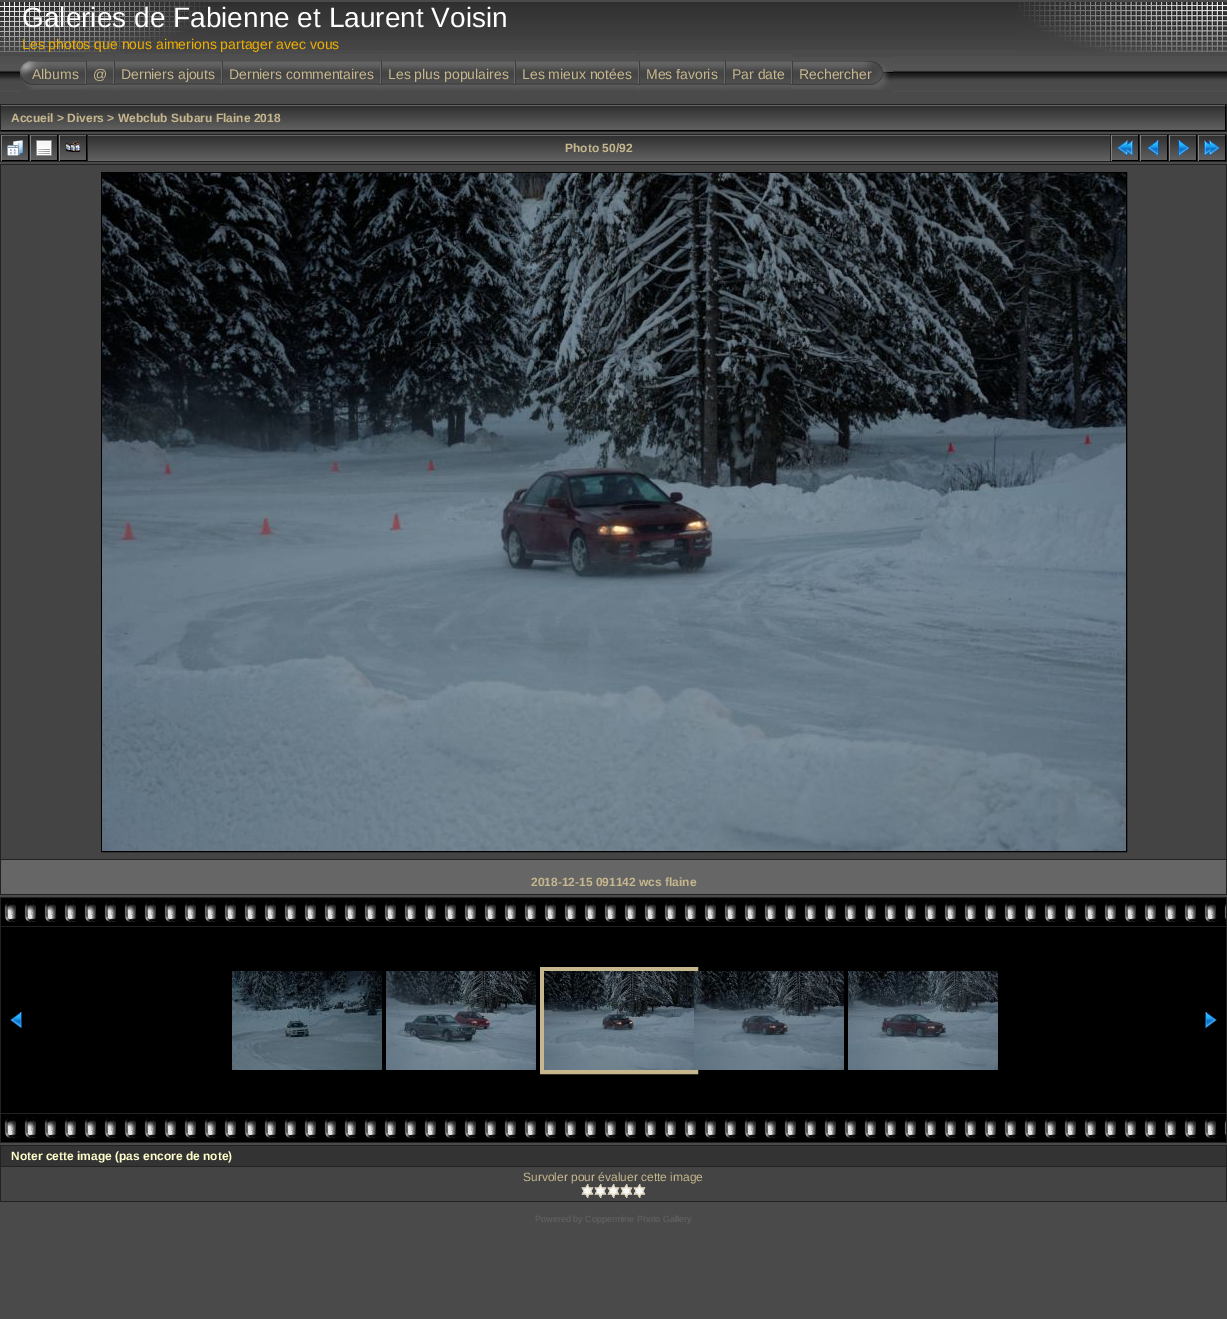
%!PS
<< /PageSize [1227 1319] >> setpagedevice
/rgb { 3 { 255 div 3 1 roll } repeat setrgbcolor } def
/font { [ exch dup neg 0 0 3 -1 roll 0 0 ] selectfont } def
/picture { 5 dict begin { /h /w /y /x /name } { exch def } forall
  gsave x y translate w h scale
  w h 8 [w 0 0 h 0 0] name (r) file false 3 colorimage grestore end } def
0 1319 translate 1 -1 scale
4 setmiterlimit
74 74 74 rgb
0 0 1227 1319 rectfill
(img/1.rgb) 208 2 810 48 picture
(img/2.rgb) 0 2 208 50 picture
(img/3.rgb) 1018 2 209 50 picture
(img/4.rgb) 0 56 1227 36 picture
20 56 65 36 rectfill
(img/5.rgb) 20 57 65 33 picture
(img/6.rgb) 85 61 2 29 picture
87 91 26 1 rectfill
(img/7.rgb) 87 54 26 36 picture
(img/6.rgb) 113 61 2 29 picture
115 91 106 1 rectfill
(img/8.rgb) 115 54 106 36 picture
(img/6.rgb) 221 61 2 29 picture
223 91 157 1 rectfill
(img/9.rgb) 223 54 157 36 picture
(img/6.rgb) 380 61 2 29 picture
382 91 132 1 rectfill
(img/10.rgb) 382 54 132 36 picture
(img/6.rgb) 514 61 2 29 picture
516 91 122 1 rectfill
(img/11.rgb) 516 54 122 36 picture
(img/6.rgb) 638 61 2 29 picture
640 91 84 1 rectfill
(img/12.rgb) 640 54 84 36 picture
(img/6.rgb) 724 61 2 29 picture
726 91 65 1 rectfill
(img/13.rgb) 726 54 65 36 picture
(img/6.rgb) 791 61 2 29 picture
793 56 100 36 rectfill
(img/14.rgb) 793 57 100 33 picture
34 34 34 rgb
0 104 1227 28 rectfill
(img/15.rgb) 1 105 1224 25 picture
[
  [1225 105 1 26 0 0 0]
  [1 130 1225 1 0 0 0]
  [0 134 1227 28 34 34 34]
] { aload pop rgb rectfill } forall
(img/16.rgb) 2 135 26 25 picture
[
  [28 135 1 26 0 0 0]
  [1 160 28 1 0 0 0]
  [1 135 1 26 131 131 131]
] { aload pop rgb rectfill } forall
(img/17.rgb) 7 140 16 16 picture
(img/16.rgb) 31 135 26 25 picture
[
  [57 135 1 26 0 0 0]
  [30 160 28 1 0 0 0]
  [30 135 1 26 131 131 131]
] { aload pop rgb rectfill } forall
(img/18.rgb) 36 140 16 16 picture
(img/16.rgb) 60 135 26 25 picture
[
  [86 135 1 26 0 0 0]
  [59 160 28 1 0 0 0]
  [59 135 1 26 131 131 131]
] { aload pop rgb rectfill } forall
(img/19.rgb) 65 141 16 12 picture
(img/20.rgb) 88 135 1022 26 picture
(img/16.rgb) 1112 135 26 25 picture
[
  [1138 135 1 26 0 0 0]
  [1111 160 28 1 0 0 0]
  [1111 135 1 26 131 131 131]
] { aload pop rgb rectfill } forall
(img/21.rgb) 1117 140 16 16 picture
(img/16.rgb) 1141 135 26 25 picture
[
  [1167 135 1 26 0 0 0]
  [1140 160 28 1 0 0 0]
  [1140 135 1 26 131 131 131]
] { aload pop rgb rectfill } forall
(img/22.rgb) 1147 140 12 16 picture
(img/16.rgb) 1170 135 26 25 picture
[
  [1196 135 1 26 0 0 0]
  [1169 160 28 1 0 0 0]
  [1169 135 1 26 131 131 131]
] { aload pop rgb rectfill } forall
(img/23.rgb) 1178 140 12 16 picture
(img/16.rgb) 1199 135 26 25 picture
[
  [1225 135 1 26 0 0 0]
  [1198 160 28 1 0 0 0]
  [1198 135 1 26 131 131 131]
] { aload pop rgb rectfill } forall
(img/24.rgb) 1204 140 16 16 picture
34 34 34 rgb
0 164 1227 731 rectfill
69 68 68 rgb
1 165 1225 694 rectfill
0 0 0 rgb
101.5 172.5 1025 679 rectstroke
(img/25.rgb) 102 173 1024 678 picture
[
  [1 860 1225 34 102 102 102]
  [0 897 1227 246 34 34 34]
  [1 898 1225 28 0 0 0]
] { aload pop rgb rectfill } forall
(img/26.rgb) 4 898 1222 24 picture
1 927 1225 186 rectfill
(img/27.rgb) 10 1012 12 16 picture
(img/28.rgb) 232 971 150 99 picture
(img/29.rgb) 386 971 150 99 picture
198 183 142 rgb
4 setlinewidth
542 969 154 103 rectstroke
(img/30.rgb) 544 971 150 99 picture
(img/31.rgb) 694 971 150 99 picture
(img/32.rgb) 848 971 150 99 picture
(img/33.rgb) 1205 1012 12 16 picture
0 0 0 rgb
1 1114 1225 28 rectfill
(img/26.rgb) 4 1114 1222 24 picture
[
  [0 1145 1227 57 34 34 34]
  [1 1146 1225 20 52 51 51]
  [1 1167 1225 34 69 68 68]
] { aload pop rgb rectfill } forall
(img/34.rgb) 581 1184 13 14 picture
(img/34.rgb) 594 1184 13 14 picture
(img/34.rgb) 607 1184 13 14 picture
(img/34.rgb) 620 1184 13 14 picture
(img/34.rgb) 633 1184 13 14 picture
/LiberationSans-Regular 28 font
255 255 255 rgb
22 27 moveto (Galeries de Fabienne et Laurent Voisin) show
/LiberationSans-Regular 14 font
240 175 0 rgb
22 49 moveto (Les photos que nous aimerions partager avec vous) show
198 183 142 rgb
[
  [(Albums) 32 79]
  [(@) 93 79]
  [(Derniers ajouts) 121 79]
  [(Derniers commentaires) 229 79]
  [(Les plus populaires) 388 79]
  [(Les mieux notées) 522 79]
  [(Mes favoris) 646 79]
  [(Par date) 732 79]
  [(Rechercher) 799 79]
] { aload pop moveto show } forall
/LiberationSans-Bold 12 font
[
  [(Accueil > Divers > Webclub Subaru Flaine 2018) 11 122]
  [(Photo 50/92) 565 152]
  [(2018-12-15 091142 wcs flaine) 531 886]
] { aload pop moveto show } forall
255 255 204 rgb
11 1160 moveto (Noter cette image \(pas encore de note\)) show
/LiberationSans-Regular 12 font
198 183 142 rgb
523 1181 moveto (Survoler pour évaluer cette image) show
/LiberationSans-Regular 9 font
102 102 102 rgb
535 1222 moveto (Powered by Coppermine Photo Gallery) show
showpage
